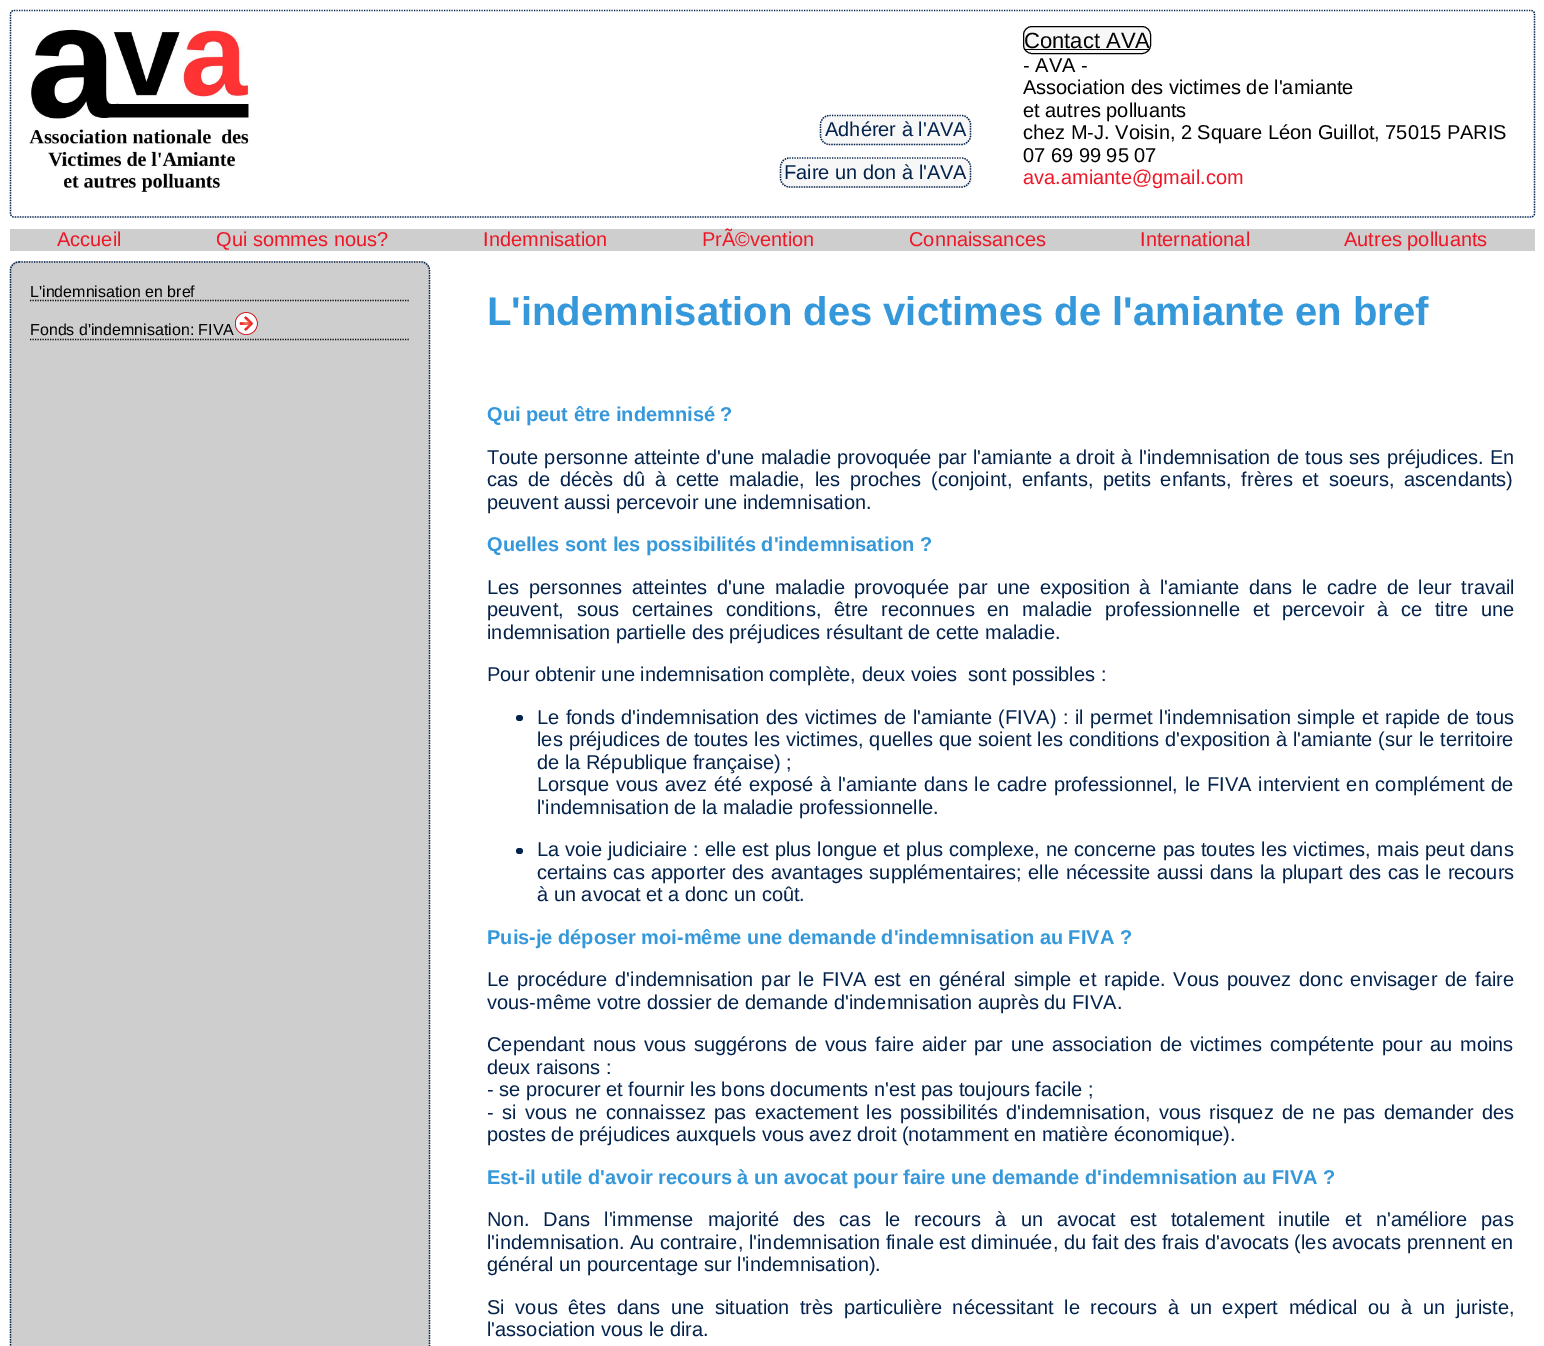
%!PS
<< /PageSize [1544 1346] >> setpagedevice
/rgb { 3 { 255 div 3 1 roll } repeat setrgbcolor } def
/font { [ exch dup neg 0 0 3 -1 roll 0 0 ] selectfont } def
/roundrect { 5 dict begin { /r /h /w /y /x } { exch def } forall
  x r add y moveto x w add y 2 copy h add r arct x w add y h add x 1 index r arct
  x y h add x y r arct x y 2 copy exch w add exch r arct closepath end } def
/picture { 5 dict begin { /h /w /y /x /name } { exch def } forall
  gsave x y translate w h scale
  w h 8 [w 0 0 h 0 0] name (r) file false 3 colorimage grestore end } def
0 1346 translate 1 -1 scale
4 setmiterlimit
255 255 255 rgb
0 0 1544 1346 rectfill
3 34 76 rgb
1.2 setlinewidth
[1.25 1.25] 0 setdash
14 10.5 moveto 1531 10.5 lineto 1533 10.5 1534.5 12 1534.5 14 curveto 1534.5 213.5 lineto 1534.5 215.5 1533 217 1531 217 curveto 14 217 lineto 12 217 10.5 215.5 10.5 213.5 curveto 10.5 14 lineto 10.5 12 12 10.5 14 10.5 curveto closepath stroke
(img/1.rgb) 29 27 222 165 picture
247 247 247 rgb
820 115 151 30 10 roundrect fill
3 34 76 rgb
829.5 115.5 moveto 961.5 115.5 lineto 966.5 115.5 970.5 119.5 970.5 124.5 curveto 970.5 135.5 lineto 970.5 140.5 966.5 144.5 961.5 144.5 curveto 829.5 144.5 lineto 824.5 144.5 820.5 140.5 820.5 135.5 curveto 820.5 124.5 lineto 820.5 119.5 824.5 115.5 829.5 115.5 curveto closepath stroke
247 247 247 rgb
780 158 191 30 10 roundrect fill
3 34 76 rgb
789.5 158 moveto 961.5 158 lineto 966.5 158 970.5 162 970.5 167 curveto 970.5 178 lineto 970.5 183 966.5 187 961.5 187 curveto 789.5 187 lineto 784.5 187 780.5 183 780.5 178 curveto 780.5 167 lineto 780.5 162 784.5 158 789.5 158 curveto closepath stroke
247 247 247 rgb
1023.5 26.5 127 27 8.5 roundrect gsave fill grestore
1 1 1 rgb
1 setlinewidth
[] 0 setdash
stroke
1024 49 126 1 rectfill
206 206 206 rgb
10 229 1525 22 rectfill
10 261 420 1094 9 roundrect fill
3 34 76 rgb
1.2 setlinewidth
[1.25 1.25] 0 setdash
19 262 moveto 421 262 lineto 425.5 262 429.5 265.5 429.5 270 curveto 429.5 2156 lineto 429.5 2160.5 425.5 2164.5 421 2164.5 curveto 19 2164.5 lineto 14.5 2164.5 10.5 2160.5 10.5 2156 curveto 10.5 270 lineto 10.5 265.5 14.5 262 19 262 curveto closepath stroke
12 12 12 rgb
30 300.5 moveto 410 300.5 lineto stroke
30 339.5 moveto 410 339.5 lineto stroke
(img/2.rgb) 235 311 23 24 picture
3 34 76 rgb
516 715 7 6 3 roundrect fill
516 848 7 6 3 roundrect fill
/LiberationSans-Regular 20 font
825 136 moveto (Adhérer à l'AVA) show
784 179 moveto (Faire un don à l'AVA) show
/LiberationSans-Regular 22 font
1 1 1 rgb
1024 48 moveto (Contact AVA) show
/LiberationSans-Regular 20 font
[
  [(- AVA -) 1023 72]
  [(Association des victimes de l'amiante) 1023 94]
  [(et autres polluants) 1023 117]
  [(chez M-J. Voisin, 2 Square Léon Guillot, 75015 PARIS) 1023 139]
  [(07 69 99 95 07) 1023 162]
] { aload pop moveto show } forall
238 23 39 rgb
[
  [(ava.amiante@gmail.com) 1023 184]
  [(Accueil) 57 246]
  [(Qui sommes nous?) 216 246]
  [(Indemnisation) 483 246]
  [(PrÃ©vention) 702 246]
  [(Connaissances) 909 246]
  [(International) 1140 246]
  [(Autres polluants) 1344 246]
] { aload pop moveto show } forall
/LiberationSans-Regular 16 font
1 1 1 rgb
30 297 moveto (L'indemnisation en bref) show
30 335 moveto (Fonds d'indemnisation: FIVA) show
/LiberationSans-Bold 40 font
52 152 219 rgb
487 325 moveto (L'indemnisation des victimes de l'amiante en bref) show
/LiberationSans-Bold 20 font
487 421 moveto (Qui peut être indemnisé ?) show
/LiberationSans-Regular 20 font
3 34 76 rgb
487 464 moveto 0.75 0 32 (Toute personne atteinte d'une maladie provoquée par l'amiante a droit à l'indemnisation de tous ses préjudices. En) widthshow
487 486 moveto 4.25 0 32 (cas de décès dû à cette maladie, les proches \(conjoint, enfants, petits enfants, frères et soeurs, ascendants\)) widthshow
487 509 moveto (peuvent aussi percevoir une indemnisation.) show
/LiberationSans-Bold 20 font
52 152 219 rgb
487 551 moveto (Quelles sont les possibilités d'indemnisation ?) show
/LiberationSans-Regular 20 font
3 34 76 rgb
487 594 moveto 4 0 32 (Les personnes atteintes d'une maladie provoquée par une exposition à l'amiante dans le cadre de leur travail) widthshow
487 616 moveto 7.25 0 32 (peuvent, sous certaines conditions, être reconnues en maladie professionnelle et percevoir à ce titre une) widthshow
487 639 moveto (indemnisation partielle des préjudices résultant de cette maladie.) show
487 681 moveto (Pour obtenir une indemnisation complète, deux voies  sont possibles :) show
537 724 moveto 1 0 32 (Le fonds d'indemnisation des victimes de l'amiante \(FIVA\) : il permet l'indemnisation simple et rapide de tous) widthshow
537 746 moveto 0.4 0 32 (les préjudices de toutes les victimes, quelles que soient les conditions d'exposition à l'amiante \(sur le territoire) widthshow
537 769 moveto (de la République française\) ;) show
537 791 moveto 1.25 0 32 (Lorsque vous avez été exposé à l'amiante dans le cadre professionnel, le FIVA intervient en complément de) widthshow
537 814 moveto (l'indemnisation de la maladie professionnelle.) show
537 856 moveto 0.5 0 32 (La voie judiciaire : elle est plus longue et plus complexe, ne concerne pas toutes les victimes, mais peut dans) widthshow
537 879 moveto 0.9 0 32 (certains cas apporter des avantages supplémentaires; elle nécessite aussi dans la plupart des cas le recours) widthshow
537 901 moveto (à un avocat et a donc un coût.) show
/LiberationSans-Bold 20 font
52 152 219 rgb
487 944 moveto (Puis-je déposer moi-même une demande d'indemnisation au FIVA ?) show
/LiberationSans-Regular 20 font
3 34 76 rgb
487 986 moveto 2.4 0 32 (Le procédure d'indemnisation par le FIVA est en général simple et rapide. Vous pouvez donc envisager de faire) widthshow
487 1009 moveto (vous-même votre dossier de demande d'indemnisation auprès du FIVA.) show
487 1051 moveto 2.25 0 32 (Cependant nous vous suggérons de vous faire aider par une association de victimes compétente pour au moins) widthshow
487 1074 moveto (deux raisons :) show
487 1096 moveto (- se procurer et fournir les bons documents n'est pas toujours facile ;) show
487 1119 moveto 2.75 0 32 (- si vous ne connaissez pas exactement les possibilités d'indemnisation, vous risquez de ne pas demander des) widthshow
487 1141 moveto (postes de préjudices auxquels vous avez droit \(notamment en matière économique\).) show
/LiberationSans-Bold 20 font
52 152 219 rgb
487 1184 moveto (Est-il utile d'avoir recours à un avocat pour faire une demande d'indemnisation au FIVA ?) show
/LiberationSans-Regular 20 font
3 34 76 rgb
487 1226 moveto 8.6 0 32 (Non. Dans l'immense majorité des cas le recours à un avocat est totalement inutile et n'améliore pas) widthshow
487 1249 moveto (l'indemnisation. Au contraire, l'indemnisation finale est diminuée, du fait des frais d'avocats \(les avocats prennent en) show
487 1271 moveto (général un pourcentage sur l'indemnisation\).) show
487 1314 moveto 5.1 0 32 (Si vous êtes dans une situation très particulière nécessitant le recours à un expert médical ou à un juriste,) widthshow
487 1336 moveto (l'association vous le dira.) show
showpage
